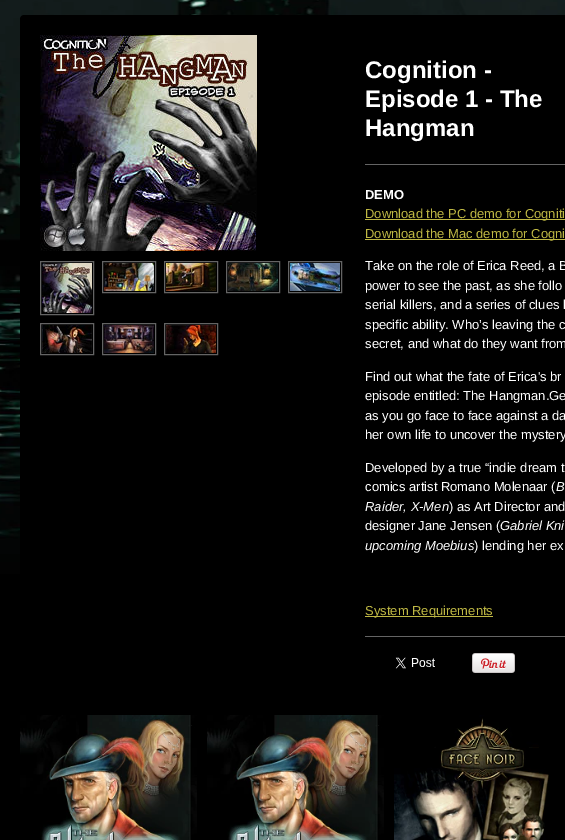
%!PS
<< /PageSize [565 840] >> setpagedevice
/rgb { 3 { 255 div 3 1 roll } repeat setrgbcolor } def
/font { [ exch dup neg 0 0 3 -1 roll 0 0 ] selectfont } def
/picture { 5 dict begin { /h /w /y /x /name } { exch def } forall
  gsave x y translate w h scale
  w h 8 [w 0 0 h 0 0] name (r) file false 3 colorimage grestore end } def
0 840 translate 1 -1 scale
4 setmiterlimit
0 0 0 rgb
0 0 565 840 rectfill
(img/1.rgb) 0 0 565 574 picture
24 15 moveto 565 15 lineto 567 15 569 17 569 19 curveto 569 700 lineto 20 700 lineto 20 19 lineto 20 17 22 15 24 15 curveto closepath fill
(img/2.rgb) 40 35 217 216 picture
100 100 100 rgb
40.5 261.5 53 53 rectstroke
(img/3.rgb) 42 263 50 50 picture
102.5 261.5 53 31 rectstroke
(img/4.rgb) 104 263 50 28 picture
164.5 261.5 53 31 rectstroke
(img/5.rgb) 166 263 50 28 picture
226.5 261.5 53 31 rectstroke
(img/6.rgb) 228 263 50 28 picture
288.5 261.5 53 31 rectstroke
(img/7.rgb) 290 263 50 28 picture
40.5 323.5 53 31 rectstroke
(img/8.rgb) 42 325 50 28 picture
102.5 323.5 53 31 rectstroke
(img/9.rgb) 104 325 50 28 picture
164.5 323.5 53 31 rectstroke
(img/10.rgb) 166 325 50 28 picture
[
  [365 164 200 1 100 100 100]
  [365 219 200 1 191 184 68]
  [365 239 200 1 191 184 68]
  [365 616 128 1 191 184 68]
  [365 636 200 1 100 100 100]
] { aload pop rgb rectfill } forall
(img/11.rgb) 395 657 40 12 picture
(img/12.rgb) 472 653 43 20 picture
(img/13.rgb) 20 715 177 125 picture
(img/14.rgb) 207 715 177 125 picture
(img/15.rgb) 394 715 155 125 picture
/LiberationSans-Bold 24 font
255 255 255 rgb
[
  [(Cognition -) 365 78]
  [(Episode 1 - The) 365 107]
  [(Hangman) 365 136]
] { aload pop moveto show } forall
/LiberationSans-Bold 13 font
365 199 moveto (DEMO) show
/LiberationSans-Regular 13 font
191 184 68 rgb
365 218 moveto (Download the PC demo for Cogniti) show
365 238 moveto (Download the Mac demo for Cogni) show
255 255 255 rgb
[
  [(Take on the role of Erica Reed, a B) 365 270]
  [(power to see the past, as she follo) 365 290]
  [(serial killers, and a series of clues l) 365 309]
  [(specific ability. Who’s leaving the c) 365 329]
  [(secret, and what do they want from) 365 348]
  [(Find out what the fate of Erica's br) 365 381]
  [(episode entitled: The Hangman.Ge) 365 400]
  [(as you go face to face against a da) 365 420]
  [(her own life to uncover the mystery) 365 439]
  [(Developed by a true “indie dream t) 365 472]
  [(comics artist Romano Molenaar \() 365 491]
] { aload pop moveto show } forall
/LiberationSans-Italic 13 font
556 491 moveto (B) show
365 511 moveto (Raider, X-Men) show
/LiberationSans-Regular 13 font
449 511 moveto (\) as Art Director and) show
365 530 moveto (designer Jane Jensen \() show
/LiberationSans-Italic 13 font
500 530 moveto (Gabriel Kni) show
365 550 moveto (upcoming Moebius) show
/LiberationSans-Regular 13 font
474 550 moveto (\) lending her ex) show
191 184 68 rgb
365 615 moveto (System Requirements) show
showpage
